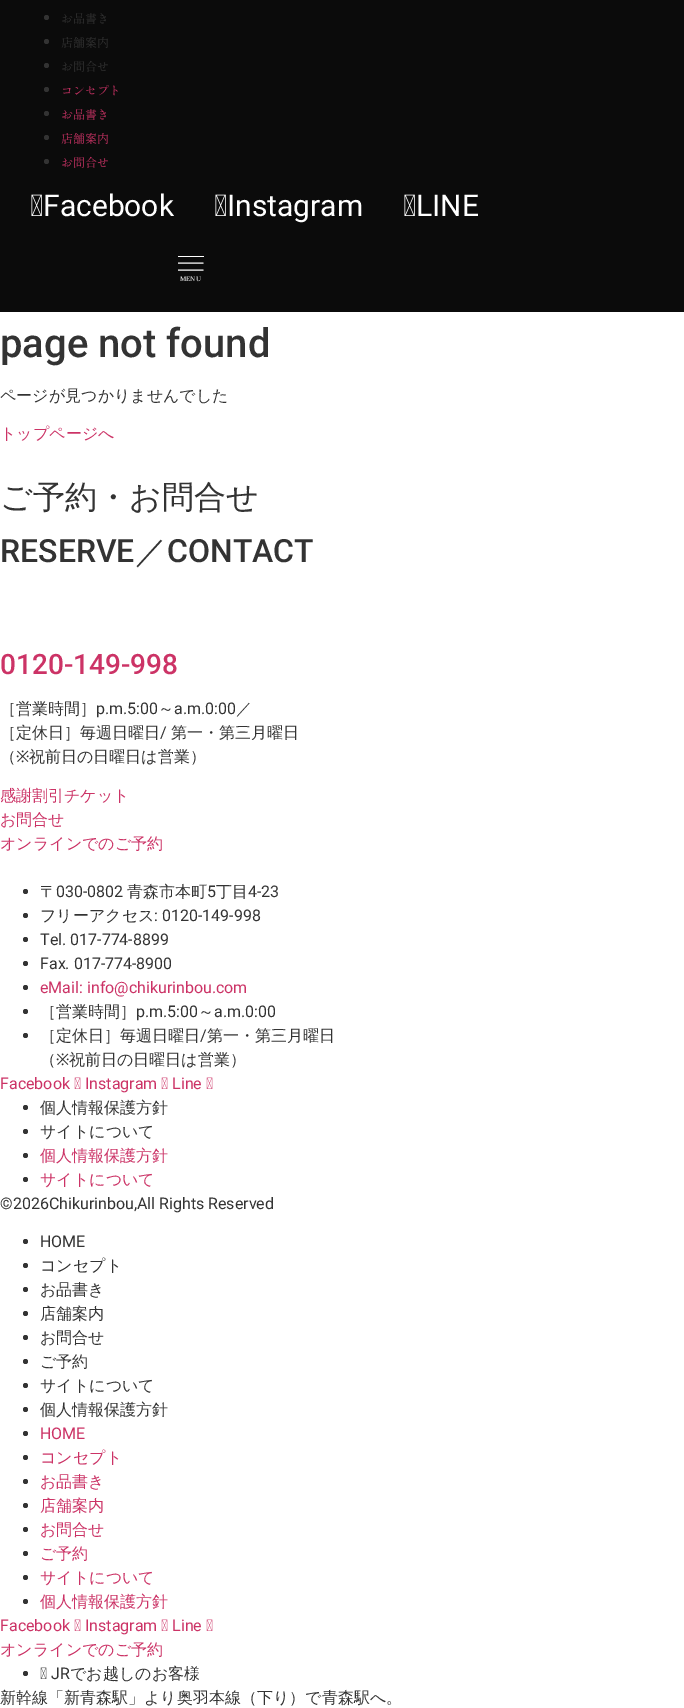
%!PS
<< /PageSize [684 1708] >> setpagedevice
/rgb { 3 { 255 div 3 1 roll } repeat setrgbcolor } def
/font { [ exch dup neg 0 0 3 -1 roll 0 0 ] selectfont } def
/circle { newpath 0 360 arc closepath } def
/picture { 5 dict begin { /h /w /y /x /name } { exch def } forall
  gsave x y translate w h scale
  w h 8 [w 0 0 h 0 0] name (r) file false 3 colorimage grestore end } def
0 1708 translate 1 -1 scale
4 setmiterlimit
255 255 255 rgb
0 0 684 1708 rectfill
11 11 11 rgb
0 0 684 312 rectfill
51 51 51 rgb
46.5 17.5 2.5 circle fill
46.5 41.5 2.5 circle fill
46.5 65.5 2.5 circle fill
46.5 89.5 2.5 circle fill
46.5 113.5 2.5 circle fill
46.5 137.5 2.5 circle fill
46.5 161.5 2.5 circle fill
(img/1.rgb) 31 194 11 22 picture
(img/1.rgb) 215 194 11 22 picture
(img/1.rgb) 404 194 11 22 picture
255 255 255 rgb
178 256 26 1 rectfill
178 263 moveto 203.5 263 lineto 178 270 moveto 203.5 270 lineto stroke
51 51 51 rgb
25.5 891.5 2.5 circle fill
25.5 915.5 2.5 circle fill
25.5 939.5 2.5 circle fill
25.5 963.5 2.5 circle fill
25.5 987.5 2.5 circle fill
25.5 1011.5 2.5 circle fill
25.5 1035.5 2.5 circle fill
(img/2.rgb) 74 1077 7 12 picture
(img/2.rgb) 161 1077 7 12 picture
(img/2.rgb) 206 1077 7 12 picture
25.5 1107.5 2.5 circle fill
25.5 1131.5 2.5 circle fill
25.5 1155.5 2.5 circle fill
25.5 1179.5 2.5 circle fill
25.5 1241.5 2.5 circle fill
25.5 1265.5 2.5 circle fill
25.5 1289.5 2.5 circle fill
25.5 1313.5 2.5 circle fill
25.5 1337.5 2.5 circle fill
25.5 1361.5 2.5 circle fill
25.5 1385.5 2.5 circle fill
25.5 1409.5 2.5 circle fill
25.5 1433.5 2.5 circle fill
25.5 1457.5 2.5 circle fill
25.5 1481.5 2.5 circle fill
25.5 1505.5 2.5 circle fill
25.5 1529.5 2.5 circle fill
25.5 1553.5 2.5 circle fill
25.5 1577.5 2.5 circle fill
25.5 1601.5 2.5 circle fill
(img/2.rgb) 74 1619 7 12 picture
(img/2.rgb) 161 1619 7 12 picture
(img/2.rgb) 206 1619 7 12 picture
25.5 1673.5 2.5 circle fill
(img/3.rgb) 40 1667 7 12 picture
/ShipporiMincho-Regular 12 font
[
  [(お品書き) 61 23]
  [(店舗案内) 61 47]
  [(お問合せ) 61 71]
] { aload pop moveto show } forall
204 51 102 rgb
[
  [(コンセプト) 61 95]
  [(お品書き) 61 119]
  [(店舗案内) 61 143]
  [(お問合せ) 61 167]
] { aload pop moveto show } forall
/Roboto-Regular 30 font
255 255 255 rgb
[
  [(Facebook) 43 216]
  [(Instagram) 227 216]
  [(LINE) 416 216]
] { aload pop moveto show } forall
/LiberationSerif-Regular 7 font
180 281 moveto (MENU) show
/Roboto-Medium 40 font
51 51 51 rgb
0 357 moveto (page not found) show
/WenQuanYiZenHei-Medium 16 font
0 401 moveto (ページが見つかりませんでした) show
204 51 102 rgb
0 439 moveto (トップページへ) show
/WenQuanYiZenHei-Medium 32 font
51 51 51 rgb
0 508 moveto (ご予約・お問合せ) show
/Roboto-Medium 32 font
0 562 moveto (RESERVE) show
/WenQuanYiZenHei-Medium 32 font
135 562 moveto (／) show
/Roboto-Medium 32 font
167 562 moveto (CONTACT) show
/Roboto-Medium 28 font
204 51 102 rgb
0 674 moveto (0120-149-998) show
/WenQuanYiZenHei-Medium 16 font
51 51 51 rgb
0 714 moveto (［営業時間］) show
/Roboto-Regular 16 font
96 714 moveto (p.m.5:00) show
/WenQuanYiZenHei-Medium 16 font
158 714 moveto (～) show
/Roboto-Regular 16 font
174 714 moveto (a.m.0:00) show
/WenQuanYiZenHei-Medium 16 font
236 714 moveto (／) show
0 738 moveto (［定休日］毎週日曜日) show
/Roboto-Regular 16 font
160 738 moveto (/) show
/WenQuanYiZenHei-Medium 16 font
171 738 moveto (第一・第三月曜日) show
0 762 moveto (（) show
/NotoSans-Regular 16 font
16 762 moveto (※) show
/WenQuanYiZenHei-Medium 16 font
29 762 moveto (祝前日の日曜日は営業）) show
204 51 102 rgb
[
  [(感謝割引チケット) 0 801]
  [(お問合せ) 0 825]
  [(オンラインでのご予約) 0 849]
] { aload pop moveto show } forall
51 51 51 rgb
40 897 moveto (〒) show
/Roboto-Regular 16 font
56 897 moveto (030-0802) show
/WenQuanYiZenHei-Medium 16 font
127 897 moveto (青森市本町) show
/Roboto-Regular 16 font
207 897 moveto (5) show
/WenQuanYiZenHei-Medium 16 font
216 897 moveto (丁目) show
/Roboto-Regular 16 font
248 897 moveto (4-23) show
/WenQuanYiZenHei-Medium 16 font
40 921 moveto (フリーアクセス) show
/Roboto-Regular 16 font
[
  [(: 0120-149-998) 154 921]
  [(Tel. 017-774-8899) 40 945]
  [(Fax. 017-774-8900) 40 969]
] { aload pop moveto show } forall
204 51 102 rgb
40 993 moveto (eMail: info@chikurinbou.com) show
/WenQuanYiZenHei-Medium 16 font
51 51 51 rgb
40 1017 moveto (［営業時間］) show
/Roboto-Regular 16 font
136 1017 moveto (p.m.5:00) show
/WenQuanYiZenHei-Medium 16 font
198 1017 moveto (～) show
/Roboto-Regular 16 font
214 1017 moveto (a.m.0:00) show
/WenQuanYiZenHei-Medium 16 font
40 1041 moveto (［定休日］毎週日曜日) show
/Roboto-Regular 16 font
200 1041 moveto (/) show
/WenQuanYiZenHei-Medium 16 font
207 1041 moveto (第一・第三月曜日) show
40 1065 moveto (（) show
/NotoSans-Regular 16 font
56 1065 moveto (※) show
/WenQuanYiZenHei-Medium 16 font
69 1065 moveto (祝前日の日曜日は営業）) show
/Roboto-Regular 16 font
204 51 102 rgb
[
  [(Facebook) 0 1089]
  [(Instagram) 85 1089]
  [(Line) 172 1089]
] { aload pop moveto show } forall
/WenQuanYiZenHei-Medium 16 font
51 51 51 rgb
40 1113 moveto (個人情報保護方針) show
40 1137 moveto (サイトについて) show
204 51 102 rgb
40 1161 moveto (個人情報保護方針) show
40 1185 moveto (サイトについて) show
/Roboto-Regular 16 font
51 51 51 rgb
0 1209 moveto (©2026Chikurinbou,All Rights Reserved) show
40 1247 moveto (HOME) show
/WenQuanYiZenHei-Medium 16 font
[
  [(コンセプト) 40 1271]
  [(お品書き) 40 1295]
  [(店舗案内) 40 1319]
  [(お問合せ) 40 1343]
  [(ご予約) 40 1367]
  [(サイトについて) 40 1391]
  [(個人情報保護方針) 40 1415]
] { aload pop moveto show } forall
/Roboto-Regular 16 font
204 51 102 rgb
40 1439 moveto (HOME) show
/WenQuanYiZenHei-Medium 16 font
[
  [(コンセプト) 40 1463]
  [(お品書き) 40 1487]
  [(店舗案内) 40 1511]
  [(お問合せ) 40 1535]
  [(ご予約) 40 1559]
  [(サイトについて) 40 1583]
  [(個人情報保護方針) 40 1607]
] { aload pop moveto show } forall
/Roboto-Regular 16 font
[
  [(Facebook) 0 1631]
  [(Instagram) 85 1631]
  [(Line) 172 1631]
] { aload pop moveto show } forall
/WenQuanYiZenHei-Medium 16 font
0 1655 moveto (オンラインでのご予約) show
/Roboto-Regular 16 font
51 51 51 rgb
51 1679 moveto (JR) show
/WenQuanYiZenHei-Medium 16 font
70 1679 moveto (でお越しのお客様) show
0 1703 moveto (新幹線「新青森駅」より奥羽本線（下り）で青森駅へ。) show
showpage
